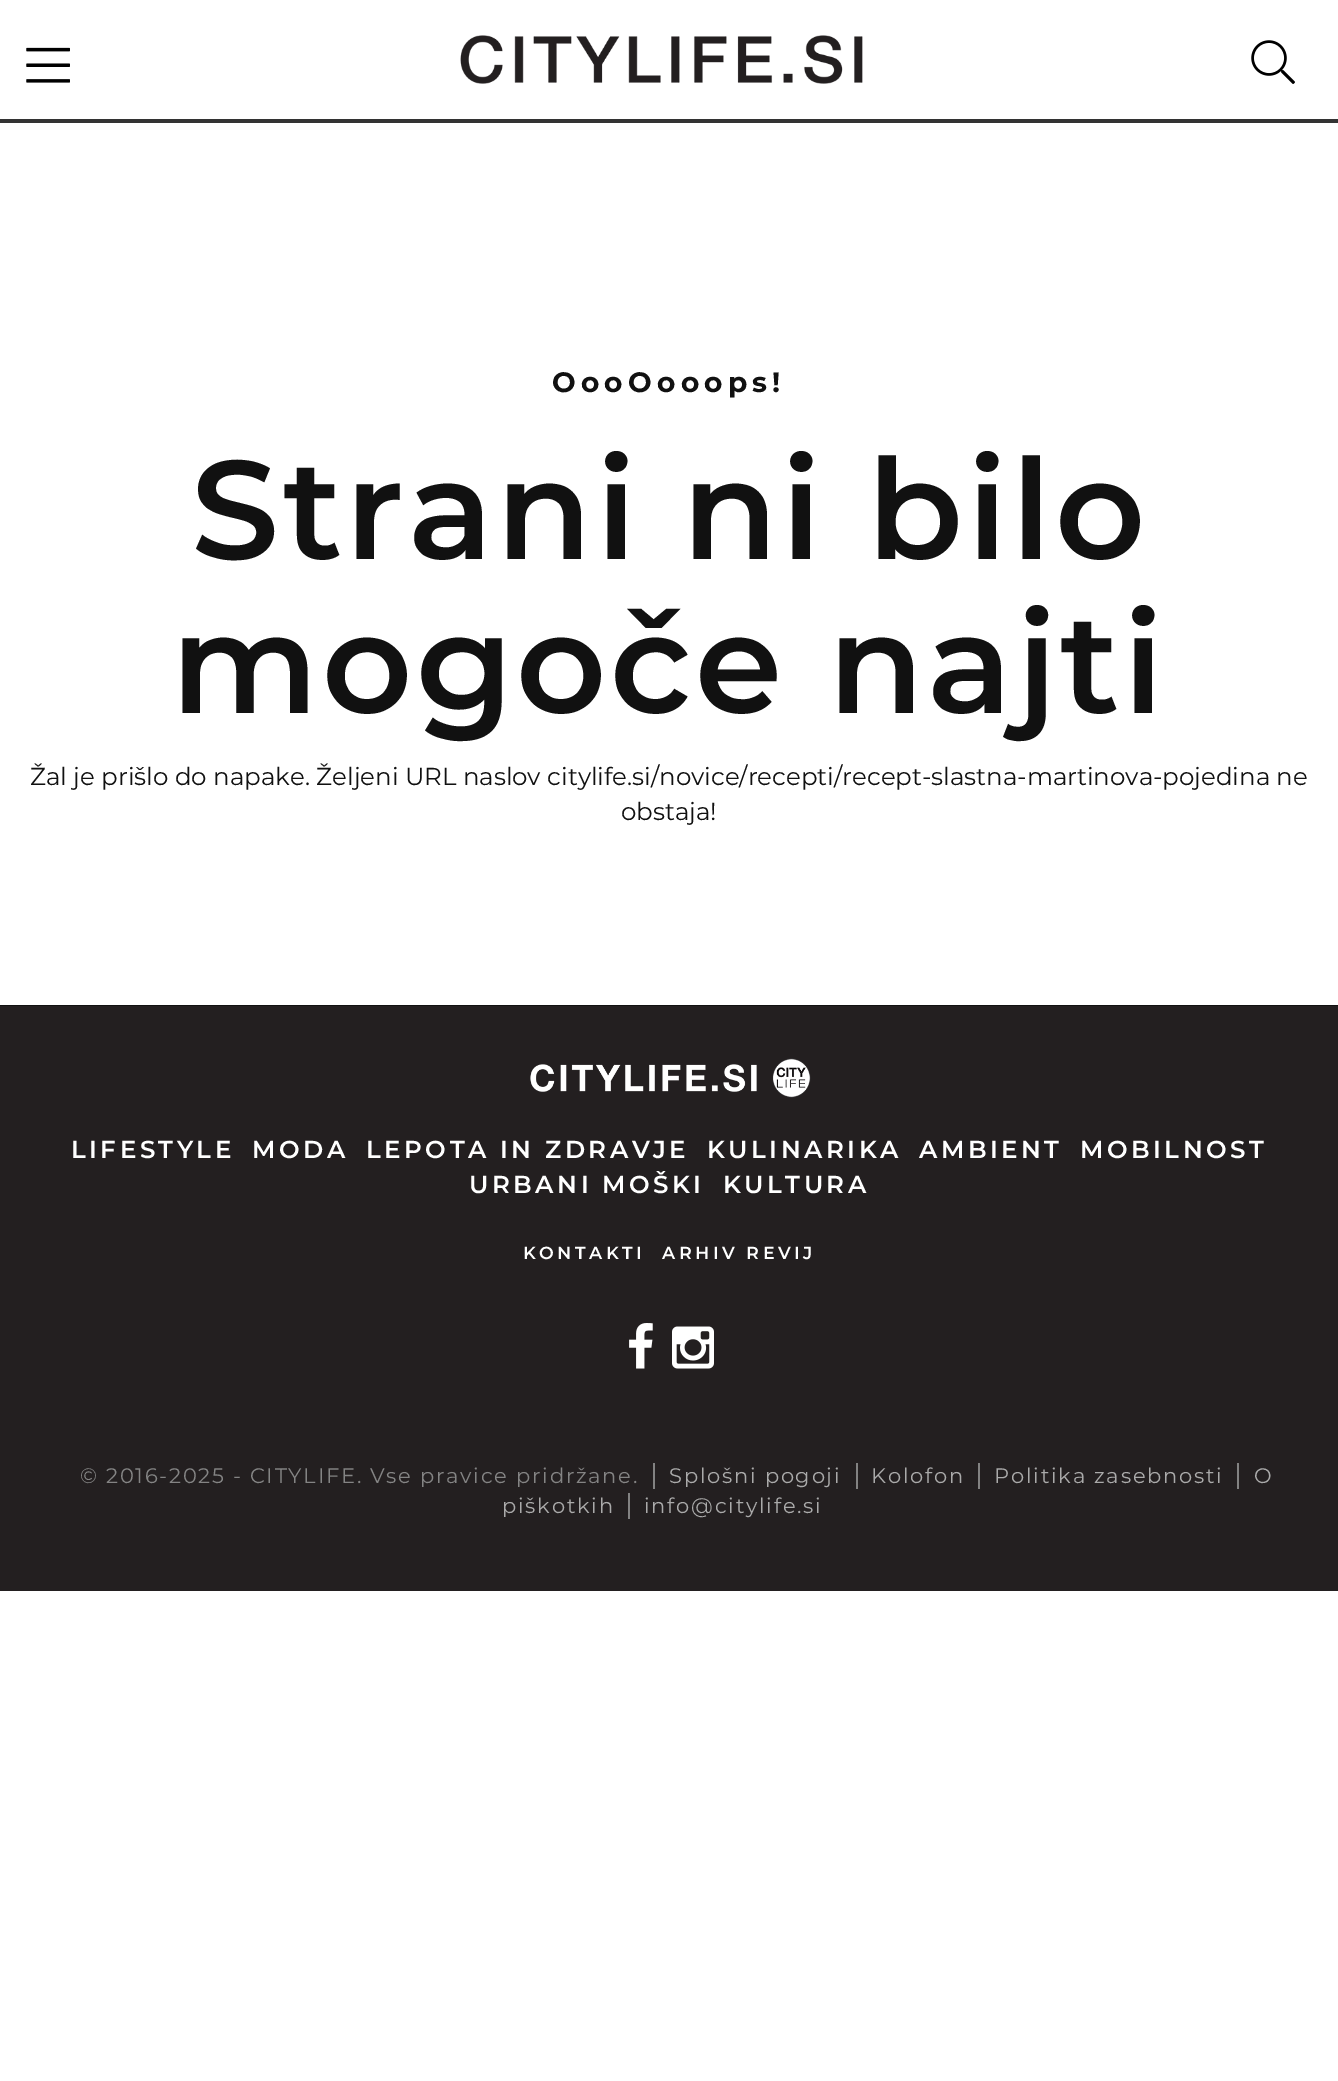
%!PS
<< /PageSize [1338 2081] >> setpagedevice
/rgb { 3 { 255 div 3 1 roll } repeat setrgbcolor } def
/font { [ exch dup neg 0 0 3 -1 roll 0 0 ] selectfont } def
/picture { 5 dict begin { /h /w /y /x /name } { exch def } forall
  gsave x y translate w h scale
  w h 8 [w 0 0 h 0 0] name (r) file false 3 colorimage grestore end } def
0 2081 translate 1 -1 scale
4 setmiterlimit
255 255 255 rgb
0 0 1338 2081 rectfill
51 51 51 rgb
0 119 1338 4 rectfill
(img/1.rgb) 26 47 44 36 picture
(img/2.rgb) 460 35 403 49 picture
(img/3.rgb) 1251 40 44 44 picture
17 17 17 rgb
0 1005 1338 1 rectfill
35 31 32 rgb
0 1006 1338 585 rectfill
(img/4.rgb) 530 1058 281 40 picture
(img/5.rgb) 629 1323 24 46 picture
(img/6.rgb) 672 1326 42 43 picture
[
  [653 1463 2 26 130 130 130]
  [856 1463 2 26 130 130 130]
  [978 1463 2 26 130 130 130]
  [1237 1463 2 26 130 130 130]
  [628 1493 2 26 130 130 130]
] { aload pop rgb rectfill } forall
/Montserrat-Bold 28 font
17 17 17 rgb
552 392 moveto 5.25 0 (OooOooops!) ashow
/Montserrat-SemiBold 140 font
191 559 moveto 3.5 0 (Strani ni bilo) ashow
171 713 moveto 3.5 0 (mogoče najti) ashow
/Montserrat-Regular 24.5 font
30 785 moveto (Žal je prišlo do napake. Željeni URL naslov citylife.si/novice/recepti/recept-slastna-martinova-pojedina ne) show
621 820 moveto (obstaja!) show
/Montserrat-SemiBold 24.5 font
255 255 255 rgb
71 1158 moveto 3.5 0 (LIFESTYLE) ashow
252 1158 moveto 3.5 0 (MODA) ashow
366 1158 moveto 3.5 0 (LEPOTA IN ZDRAVJE) ashow
707 1158 moveto 3.5 0 (KULINARIKA) ashow
919 1158 moveto 3.5 0 (AMBIENT) ashow
1080 1158 moveto 3.5 0 (MOBILNOST) ashow
469 1193 moveto 3.5 0 (URBANI MOŠKI) ashow
723 1193 moveto 3.5 0 (KULTURA) ashow
/Montserrat-SemiBold 17.5 font
523 1259 moveto 3.5 0 (KONTAKTI) ashow
662 1259 moveto 3.5 0 (ARHIV REVIJ) ashow
/Montserrat-Regular 21 font
132 132 132 rgb
80 1483 moveto 1.75 0 (© 2016-2025 - CITYLIFE. Vse pravice pridržane.) ashow
170 170 170 rgb
669 1483 moveto 1.75 0 (Splošni pogoji) ashow
871 1483 moveto 1.75 0 (Kolofon) ashow
994 1483 moveto 1.75 0 (Politika zasebnosti) ashow
1254 1483 moveto 1.75 0 (O) ashow
502 1513 moveto 1.75 0 (piškotkih) ashow
644 1513 moveto 1.75 0 (info@citylife.si) ashow
showpage
